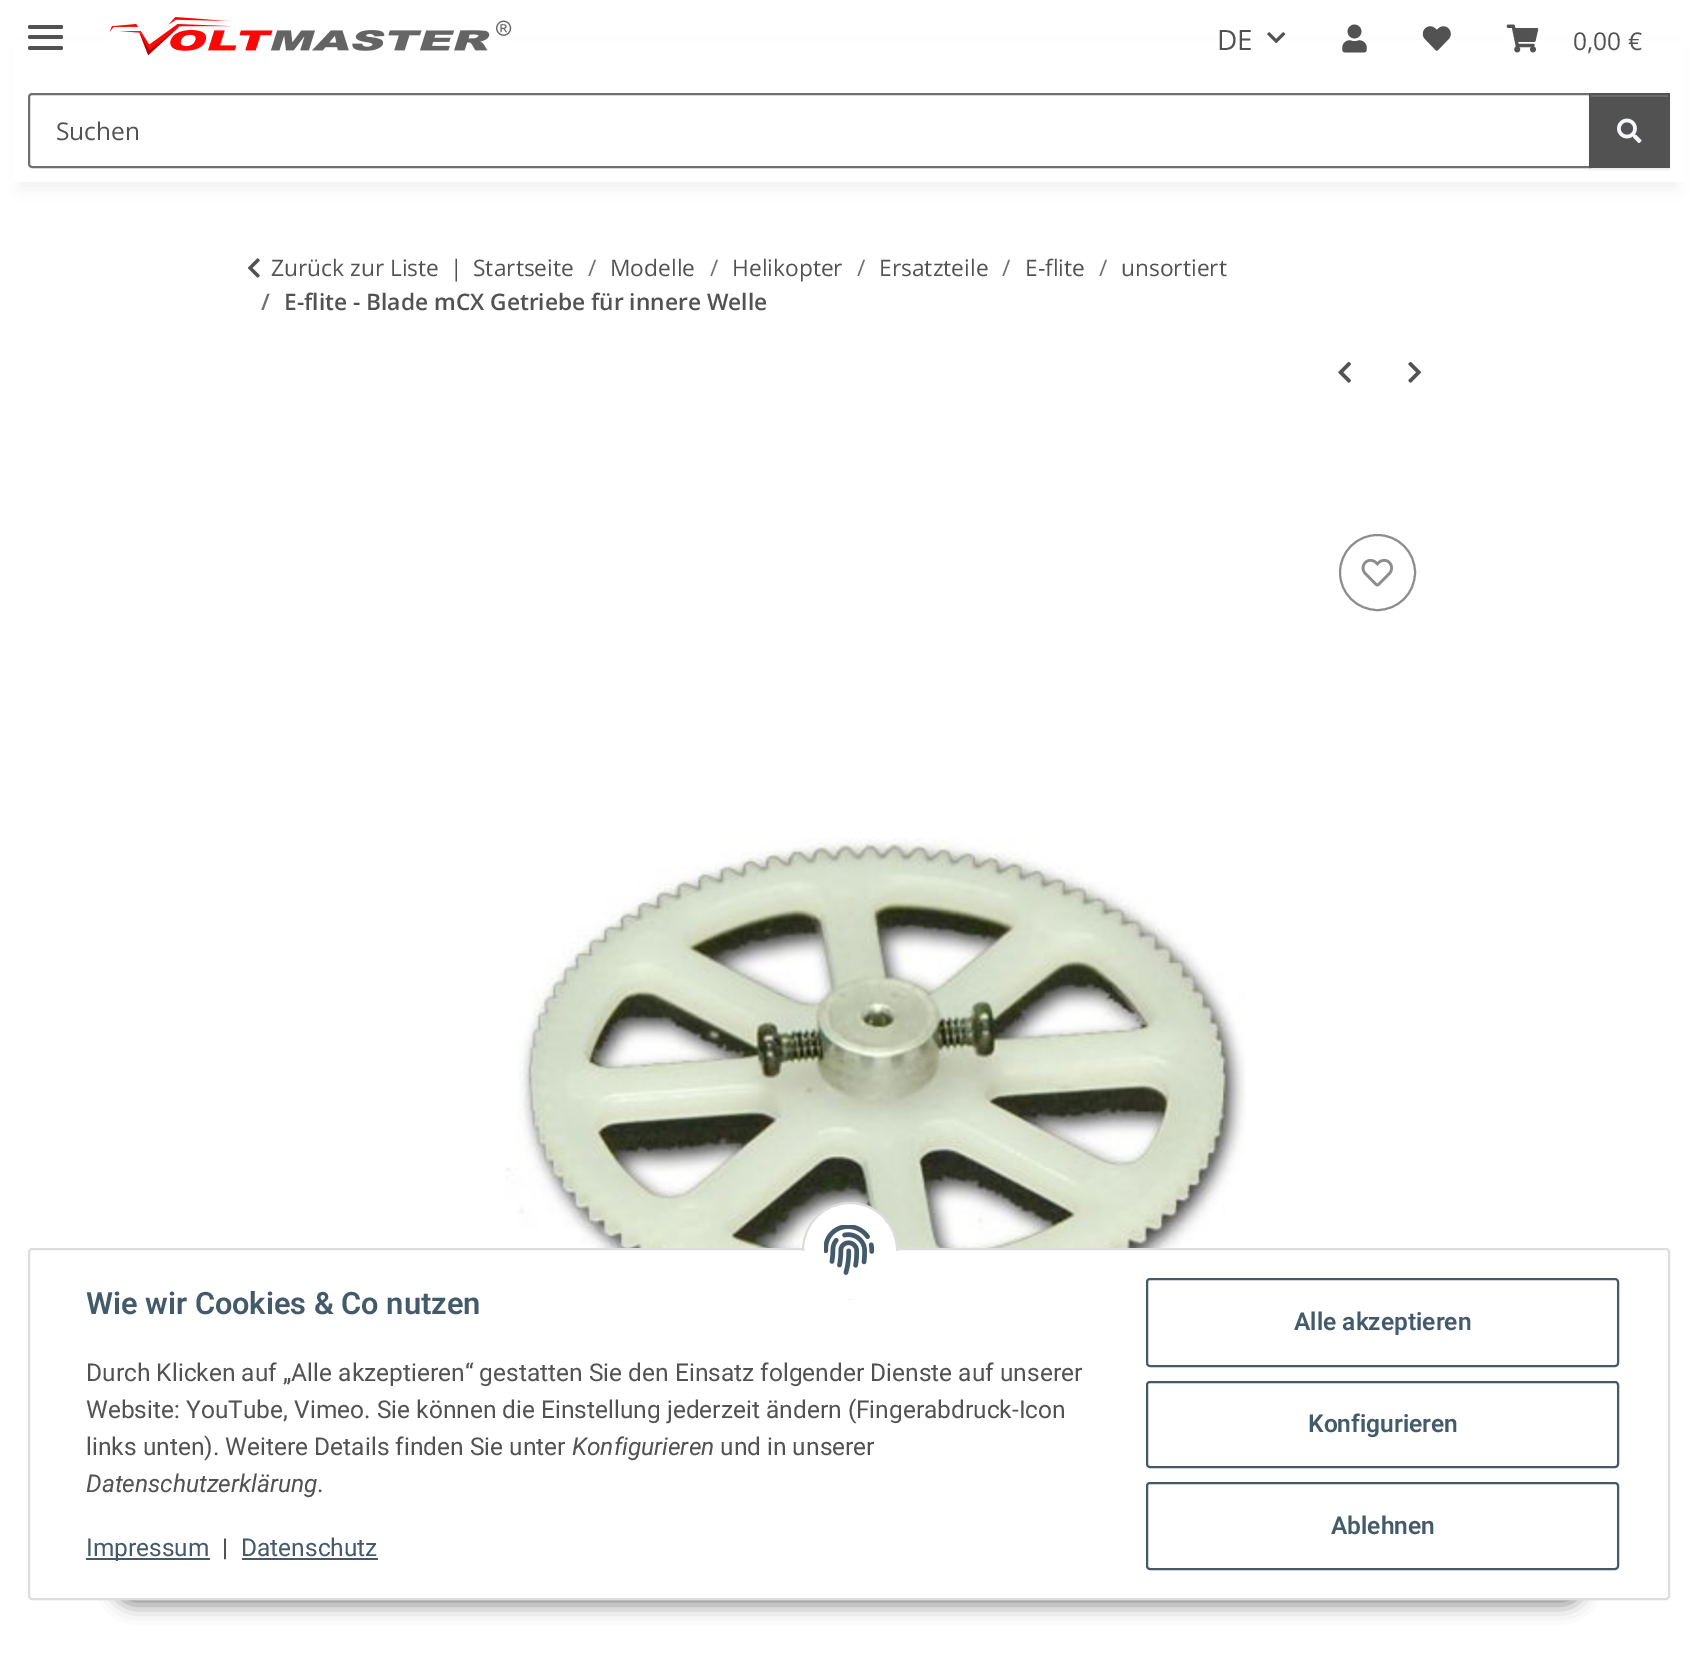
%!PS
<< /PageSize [1697 1654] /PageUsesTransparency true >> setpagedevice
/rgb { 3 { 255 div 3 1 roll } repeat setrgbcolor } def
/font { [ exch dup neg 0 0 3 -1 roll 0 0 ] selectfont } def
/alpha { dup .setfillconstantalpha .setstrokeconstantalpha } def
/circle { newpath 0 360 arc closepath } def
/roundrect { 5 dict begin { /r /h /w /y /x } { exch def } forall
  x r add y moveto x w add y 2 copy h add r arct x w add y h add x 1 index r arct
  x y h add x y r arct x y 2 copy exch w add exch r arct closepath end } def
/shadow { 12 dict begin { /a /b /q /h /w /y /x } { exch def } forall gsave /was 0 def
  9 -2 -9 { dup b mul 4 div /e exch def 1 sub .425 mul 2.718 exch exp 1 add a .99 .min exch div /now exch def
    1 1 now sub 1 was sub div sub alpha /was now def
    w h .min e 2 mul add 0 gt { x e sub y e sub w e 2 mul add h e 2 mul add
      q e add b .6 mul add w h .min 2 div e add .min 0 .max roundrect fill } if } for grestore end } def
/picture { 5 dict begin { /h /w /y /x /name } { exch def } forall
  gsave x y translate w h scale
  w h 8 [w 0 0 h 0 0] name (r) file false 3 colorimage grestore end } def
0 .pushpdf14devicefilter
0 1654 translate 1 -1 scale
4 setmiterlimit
255 255 255 rgb
0 0 1697 1654 rectfill
0 0 0 rgb
21 49 1656 140 0 8 0.06 shadow
255 255 255 rgb
13 41 1672 141 rectfill
82 82 82 rgb
28 35 35 4 2 roundrect fill
28 25 35 4 2 roundrect fill
28 46 35 4 2 roundrect fill
(img/1.rgb) 109 17 403 39 picture
(img/2.rgb) 1267 32 19 12 picture
(img/3.rgb) 1342 24 25 29 picture
(img/4.rgb) 1422 26 29 25 picture
(img/5.rgb) 1506 24 33 29 picture
112 112 112 rgb
2 setlinewidth
32 94 moveto 1590 94 lineto 1590 167 lineto 32 167 lineto 30.5 167 29 165.5 29 164 curveto 29 97 lineto 29 95.5 30.5 94 32 94 curveto closepath stroke
0 0 0 rgb
1589 95 81 75 0 1 0.07 shadow
82 82 82 rgb
1589 93 81 75 rectfill
108 108 108 rgb
1591 95 77 2 rectfill
(img/6.rgb) 1617 118 25 25 picture
(img/7.rgb) 248 258 12 20 picture
(img/8.rgb) 1338 361 13 22 picture
(img/9.rgb) 1408 361 13 22 picture
141 141 141 rgb
1377.5 572.5 37.5 circle stroke
(img/10.rgb) 1361 558 32 29 picture
(img/11.rgb) 505 837 741 411 picture
0 0 0 rgb
112 1549 1474 56 28 9 0.45 shadow
255 255 255 rgb
29 1249 1640 350 3 roundrect gsave fill grestore
221 221 221 rgb
stroke
255 255 255 rgb
803 1203 94 95 47 roundrect gsave fill grestore
221 221 221 rgb
stroke
255 255 255 rgb
802 1251 96 48 rectfill
(img/12.rgb) 824 1225 51 50 picture
67 90 107 rgb
86 1558 124 2 rectfill
242 1558 136 2 rectfill
1147 1279 471 87 3 roundrect stroke
1147 1382 471 85 3 roundrect stroke
1147 1483 471 86 3 roundrect stroke
/OpenSans-Regular 28 font
82 82 82 rgb
1217 50 moveto (DE) show
/OpenSans-Regular 24.5 font
1573 50 moveto (0,00 €) show
56 140 moveto (Suchen) show
/OpenSans-Regular 22.75 font
[
  [(Zurück zur Liste) 271 276]
  [(|) 450 276]
  [(Startseite) 473 276]
] { aload pop moveto show } forall
112 112 112 rgb
588 276 moveto (/) show
82 82 82 rgb
610 276 moveto (Modelle) show
112 112 112 rgb
710 276 moveto (/) show
82 82 82 rgb
732 276 moveto (Helikopter) show
112 112 112 rgb
857 276 moveto (/) show
82 82 82 rgb
879 276 moveto (Ersatzteile) show
112 112 112 rgb
1002 276 moveto (/) show
82 82 82 rgb
1025 276 moveto (E-flite) show
112 112 112 rgb
1099 276 moveto (/) show
82 82 82 rgb
1121 276 moveto (unsortiert) show
/OpenSans-SemiBold 22.75 font
112 112 112 rgb
261 310 moveto (/) show
82 82 82 rgb
284 310 moveto (E-flite - Blade mCX Getriebe für innere Welle) show
/Roboto-SemiBold 30.75 font
67 90 107 rgb
86 1314 moveto (Wie wir Cookies & Co nutzen) show
/Roboto-Regular 24.5 font
82 82 82 rgb
[
  [(Durch Klicken auf „Alle akzeptieren“ gestatten Sie den Einsatz folgender Dienste auf unserer) 86 1381]
  [(Website: YouTube, Vimeo. Sie können die Einstellung jederzeit ändern \(Fingerabdruck-Icon) 86 1418]
  [(links unten\). Weitere Details finden Sie unter) 86 1455]
] { aload pop moveto show } forall
/Roboto-Italic 24.5 font
572 1455 moveto (Konfigurieren) show
/Roboto-Regular 24.5 font
720 1455 moveto (und in unserer) show
/Roboto-Italic 24.5 font
86 1492 moveto (Datenschutzerklärung) show
/Roboto-Regular 24.5 font
317 1492 moveto (.) show
67 90 107 rgb
86 1556 moveto (Impressum) show
82 82 82 rgb
222 1556 moveto (|) show
67 90 107 rgb
241 1556 moveto (Datenschutz) show
/Roboto-SemiBold 24.5 font
[
  [(Alle akzeptieren) 1294 1330]
  [(Konfigurieren) 1308 1432]
  [(Ablehnen) 1331 1534]
] { aload pop moveto show } forall
.poppdf14devicefilter showpage
